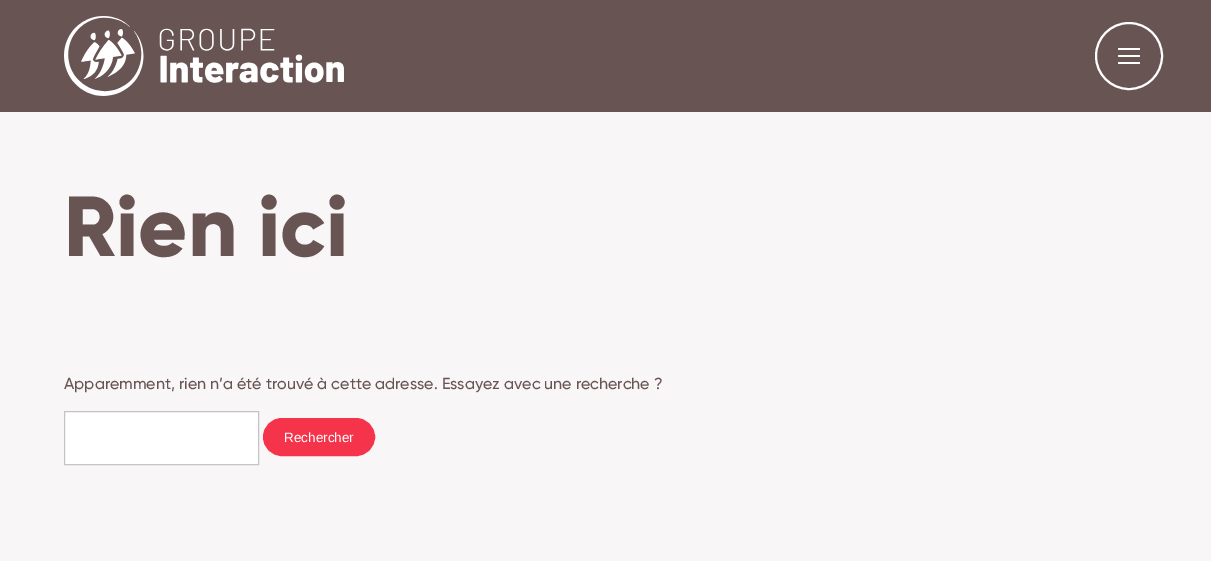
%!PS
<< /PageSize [1211 561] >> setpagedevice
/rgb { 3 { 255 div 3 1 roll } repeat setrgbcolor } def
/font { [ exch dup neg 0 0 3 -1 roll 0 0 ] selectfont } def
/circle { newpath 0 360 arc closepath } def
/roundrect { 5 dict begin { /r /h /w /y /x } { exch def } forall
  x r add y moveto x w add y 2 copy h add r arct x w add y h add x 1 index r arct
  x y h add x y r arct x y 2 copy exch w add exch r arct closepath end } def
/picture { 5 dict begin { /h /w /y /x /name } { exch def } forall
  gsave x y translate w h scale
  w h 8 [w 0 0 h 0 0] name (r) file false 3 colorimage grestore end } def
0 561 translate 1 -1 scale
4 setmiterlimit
248 246 246 rgb
0 0 1211 561 rectfill
105 84 84 rgb
0 0 1211 112 rectfill
(img/1.rgb) 64 16 280 80 picture
255 255 255 rgb
2 setlinewidth
1129 56 33 circle stroke
1118 48 22 2 1 roundrect fill
1118 55 22 2 1 roundrect fill
1118 62 22 2 1 roundrect fill
64.5 411.5 moveto 258.5 411.5 lineto 258.5 464.5 lineto 64.5 464.5 lineto closepath gsave fill grestore
196 196 196 rgb
1 setlinewidth
stroke
245 51 74 rgb
264 419 110 36 18 roundrect gsave fill grestore
2 setlinewidth
stroke
/Gilroy-ExtraBold 85 font
105 84 84 rgb
64 256 moveto (Rien ici) show
/Gilroy-Medium 16 font
64 389 moveto (Apparemment, rien n’a été trouvé à cette adresse. Essayez avec une recherche ?) show
/LiberationSans-Regular 13.5 font
255 255 255 rgb
284 442 moveto (Rechercher) show
showpage
